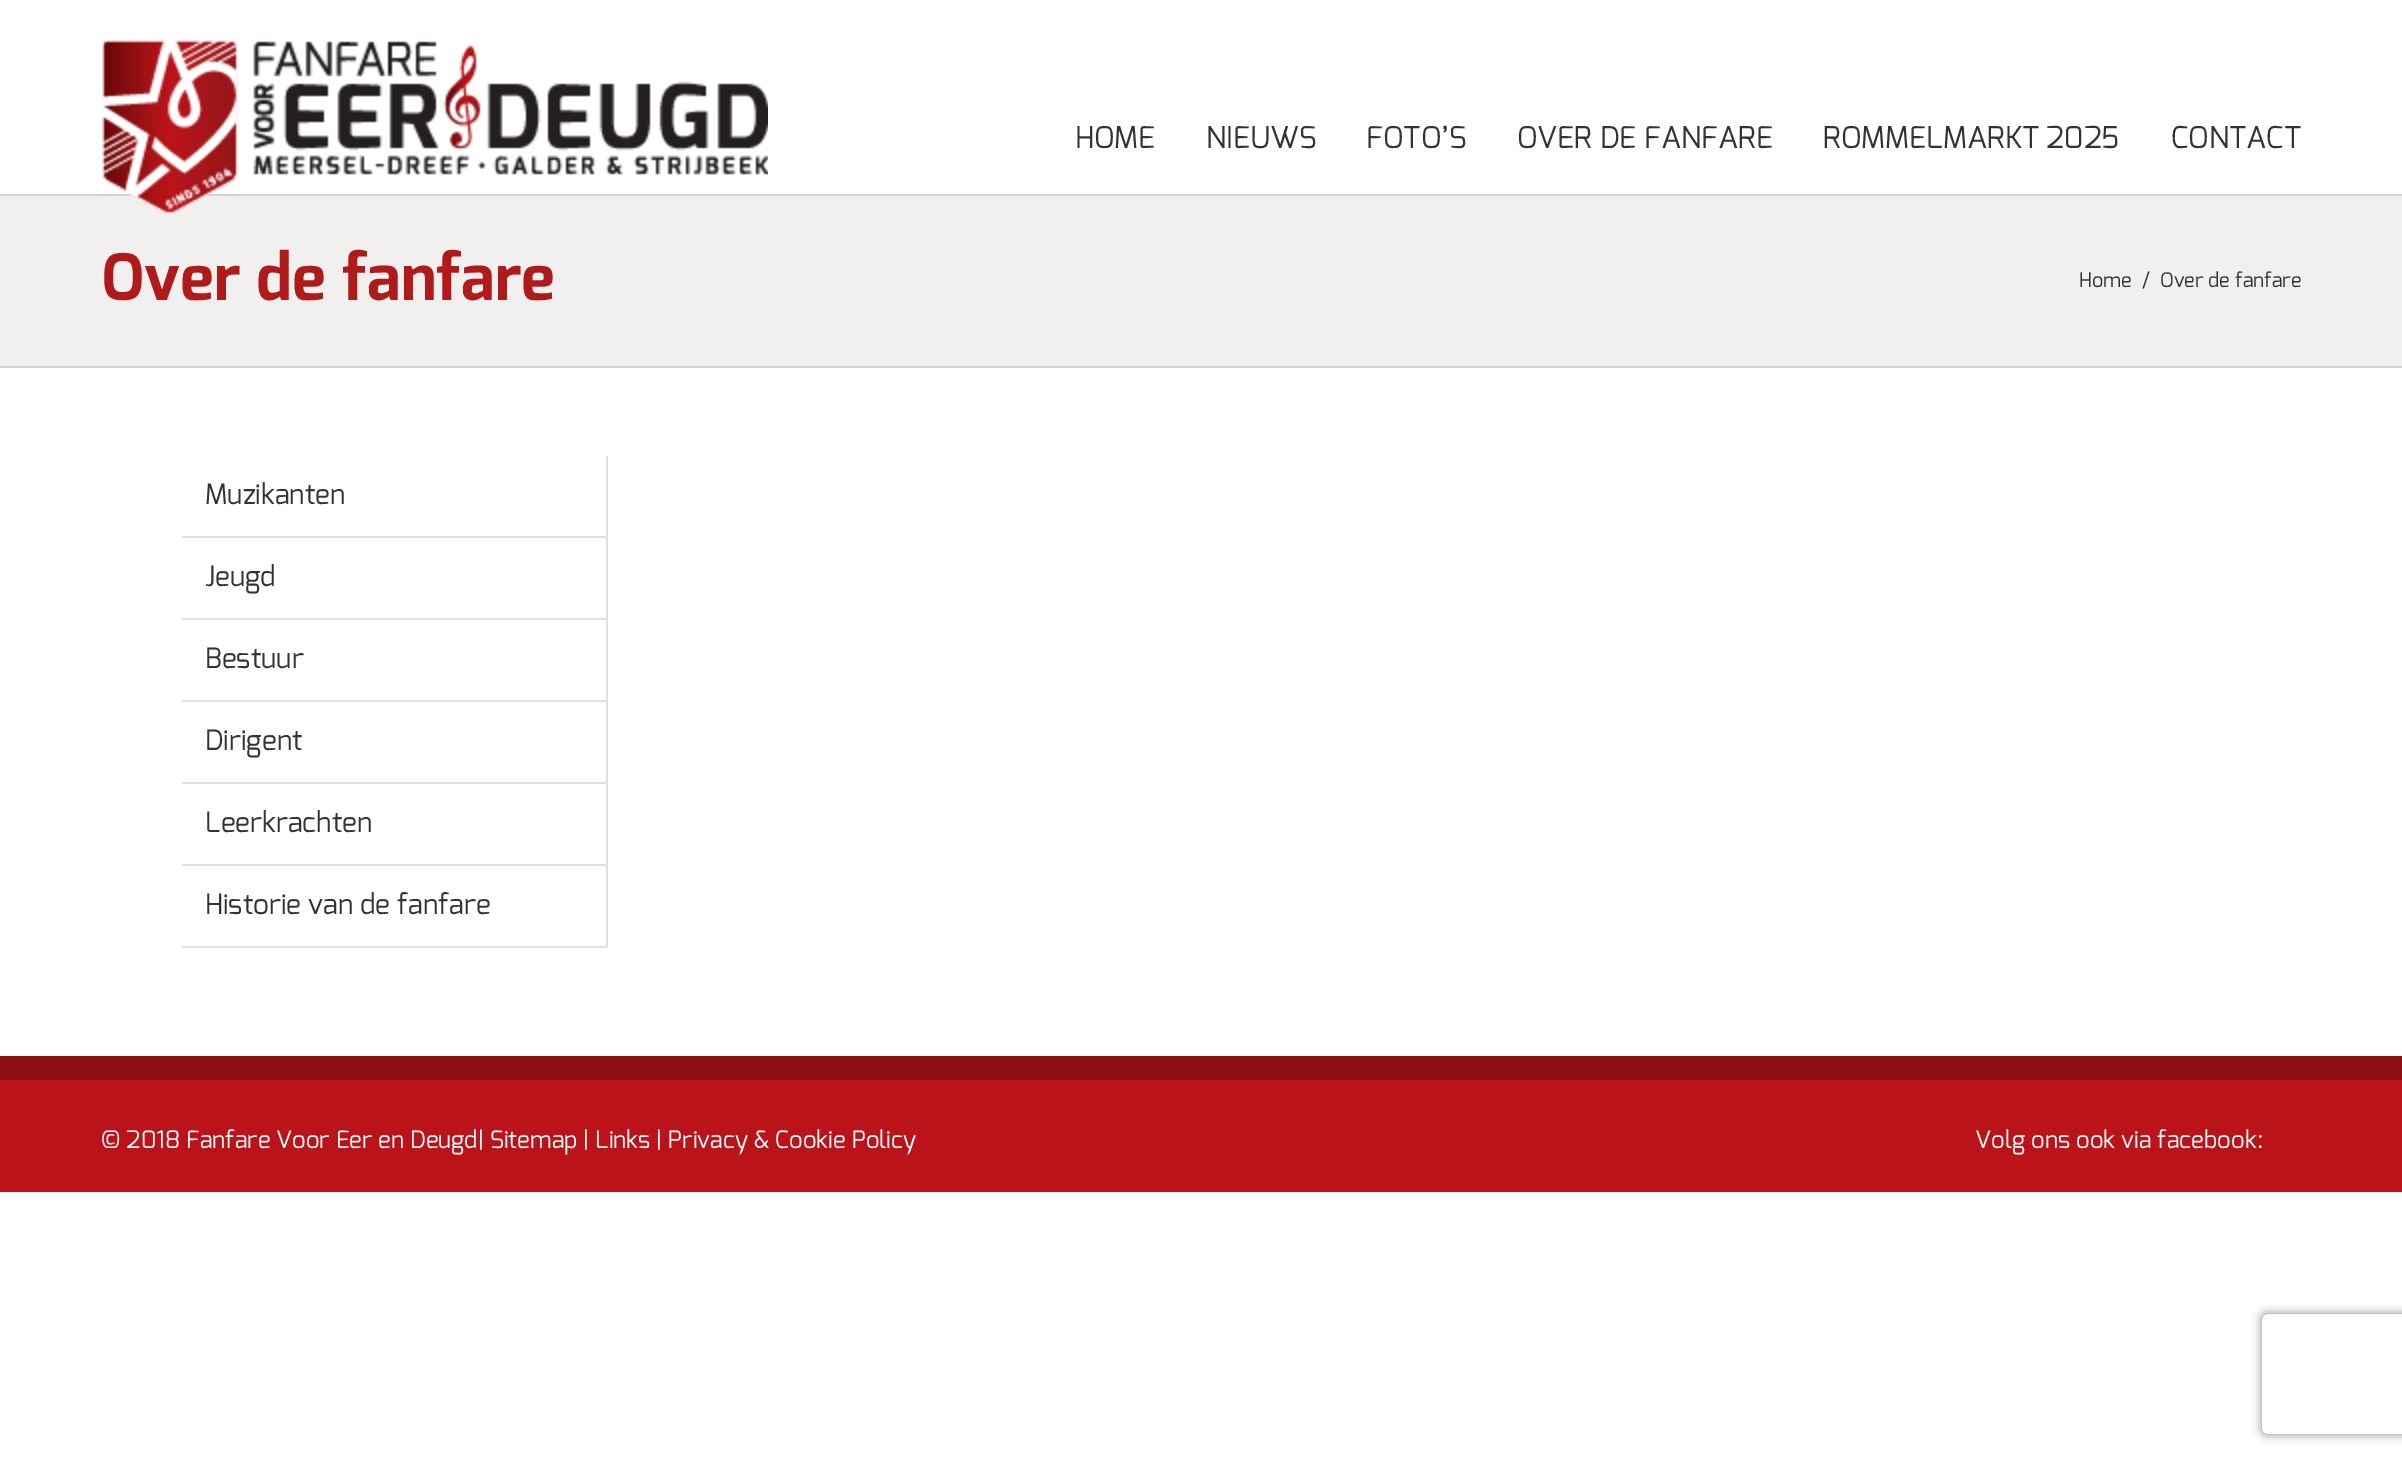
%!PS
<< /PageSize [2402 1462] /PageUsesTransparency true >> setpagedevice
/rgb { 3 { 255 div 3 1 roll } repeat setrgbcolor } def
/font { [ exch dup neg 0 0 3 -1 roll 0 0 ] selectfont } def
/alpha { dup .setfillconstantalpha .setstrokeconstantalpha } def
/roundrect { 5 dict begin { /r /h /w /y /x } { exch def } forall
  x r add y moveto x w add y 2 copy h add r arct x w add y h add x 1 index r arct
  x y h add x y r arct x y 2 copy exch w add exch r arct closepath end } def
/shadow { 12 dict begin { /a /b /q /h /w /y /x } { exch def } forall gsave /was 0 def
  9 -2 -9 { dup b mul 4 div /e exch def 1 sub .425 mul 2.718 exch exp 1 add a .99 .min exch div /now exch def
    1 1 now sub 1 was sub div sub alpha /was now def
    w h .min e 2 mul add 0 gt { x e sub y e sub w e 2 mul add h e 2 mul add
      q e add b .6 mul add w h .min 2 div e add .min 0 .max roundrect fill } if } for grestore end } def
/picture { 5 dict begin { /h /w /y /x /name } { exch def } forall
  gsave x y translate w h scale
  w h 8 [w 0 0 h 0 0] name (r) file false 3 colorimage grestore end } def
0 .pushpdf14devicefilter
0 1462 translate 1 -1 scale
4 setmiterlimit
255 255 255 rgb
0 0 2402 1462 rectfill
242 239 239 rgb
0 196 2402 170 rectfill
210 211 212 rgb
0 194 2402 2 rectfill
(img/1.rgb) 102 40 666 174 picture
[
  [0 366 2402 2 210 211 212]
  [606 456 2 492 224 222 222]
  [182 536 426 2 224 222 222]
  [182 618 426 2 224 222 222]
  [182 700 426 2 224 222 222]
  [182 782 426 2 224 222 222]
  [182 864 426 2 224 222 222]
  [182 946 426 2 224 222 222]
  [0 1080 2402 112 186 20 26]
  [0 1056 2402 24 139 15 19]
] { aload pop rgb rectfill } forall
gsave
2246 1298 moveto 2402 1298 lineto 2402 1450 lineto 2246 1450 lineto closepath 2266 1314 moveto 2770 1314 lineto 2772 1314 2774 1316 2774 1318 curveto 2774 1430 lineto 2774 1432 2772 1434 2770 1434 curveto 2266 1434 lineto 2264 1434 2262 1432 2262 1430 curveto 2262 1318 lineto 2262 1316 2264 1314 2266 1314 curveto closepath eoclip newpath
128 128 128 rgb
2262 1314 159 120 4 5 1 shadow
grestore
/Exo-Regular 30 font
51 51 51 rgb
[
  [(HOME) 1075 148]
  [(NIEUWS) 1206 148]
  [(FOTO’S) 1366 148]
  [(OVER DE FANFARE) 1517 148]
] { aload pop moveto show } forall
1823 148 moveto -1 0 32 (ROMMELMARKT 2025) widthshow
2171 148 moveto (CONTACT) show
/Exo-Bold 64 font
175 27 26 rgb
101 300 moveto (Over de fanfare) show
/Exo-Regular 20 font
51 51 51 rgb
[
  [(Home) 2079 287]
  [(/) 2142 287]
  [(Over de fanfare) 2160 287]
] { aload pop moveto show } forall
/Exo-Regular 28 font
[
  [(Muzikanten) 205 504]
  [(Jeugd) 205 586]
  [(Bestuur) 205 668]
  [(Dirigent) 205 750]
  [(Leerkrachten) 205 832]
  [(Historie van de fanfare) 205 914]
] { aload pop moveto show } forall
/Exo-Regular 24 font
255 255 255 rgb
101 1148 moveto (© 2018 Fanfare Voor Eer en Deugd| Sitemap | Links | Privacy & Cookie Policy) show
1975 1148 moveto (Volg ons ook via facebook:) show
.poppdf14devicefilter showpage
